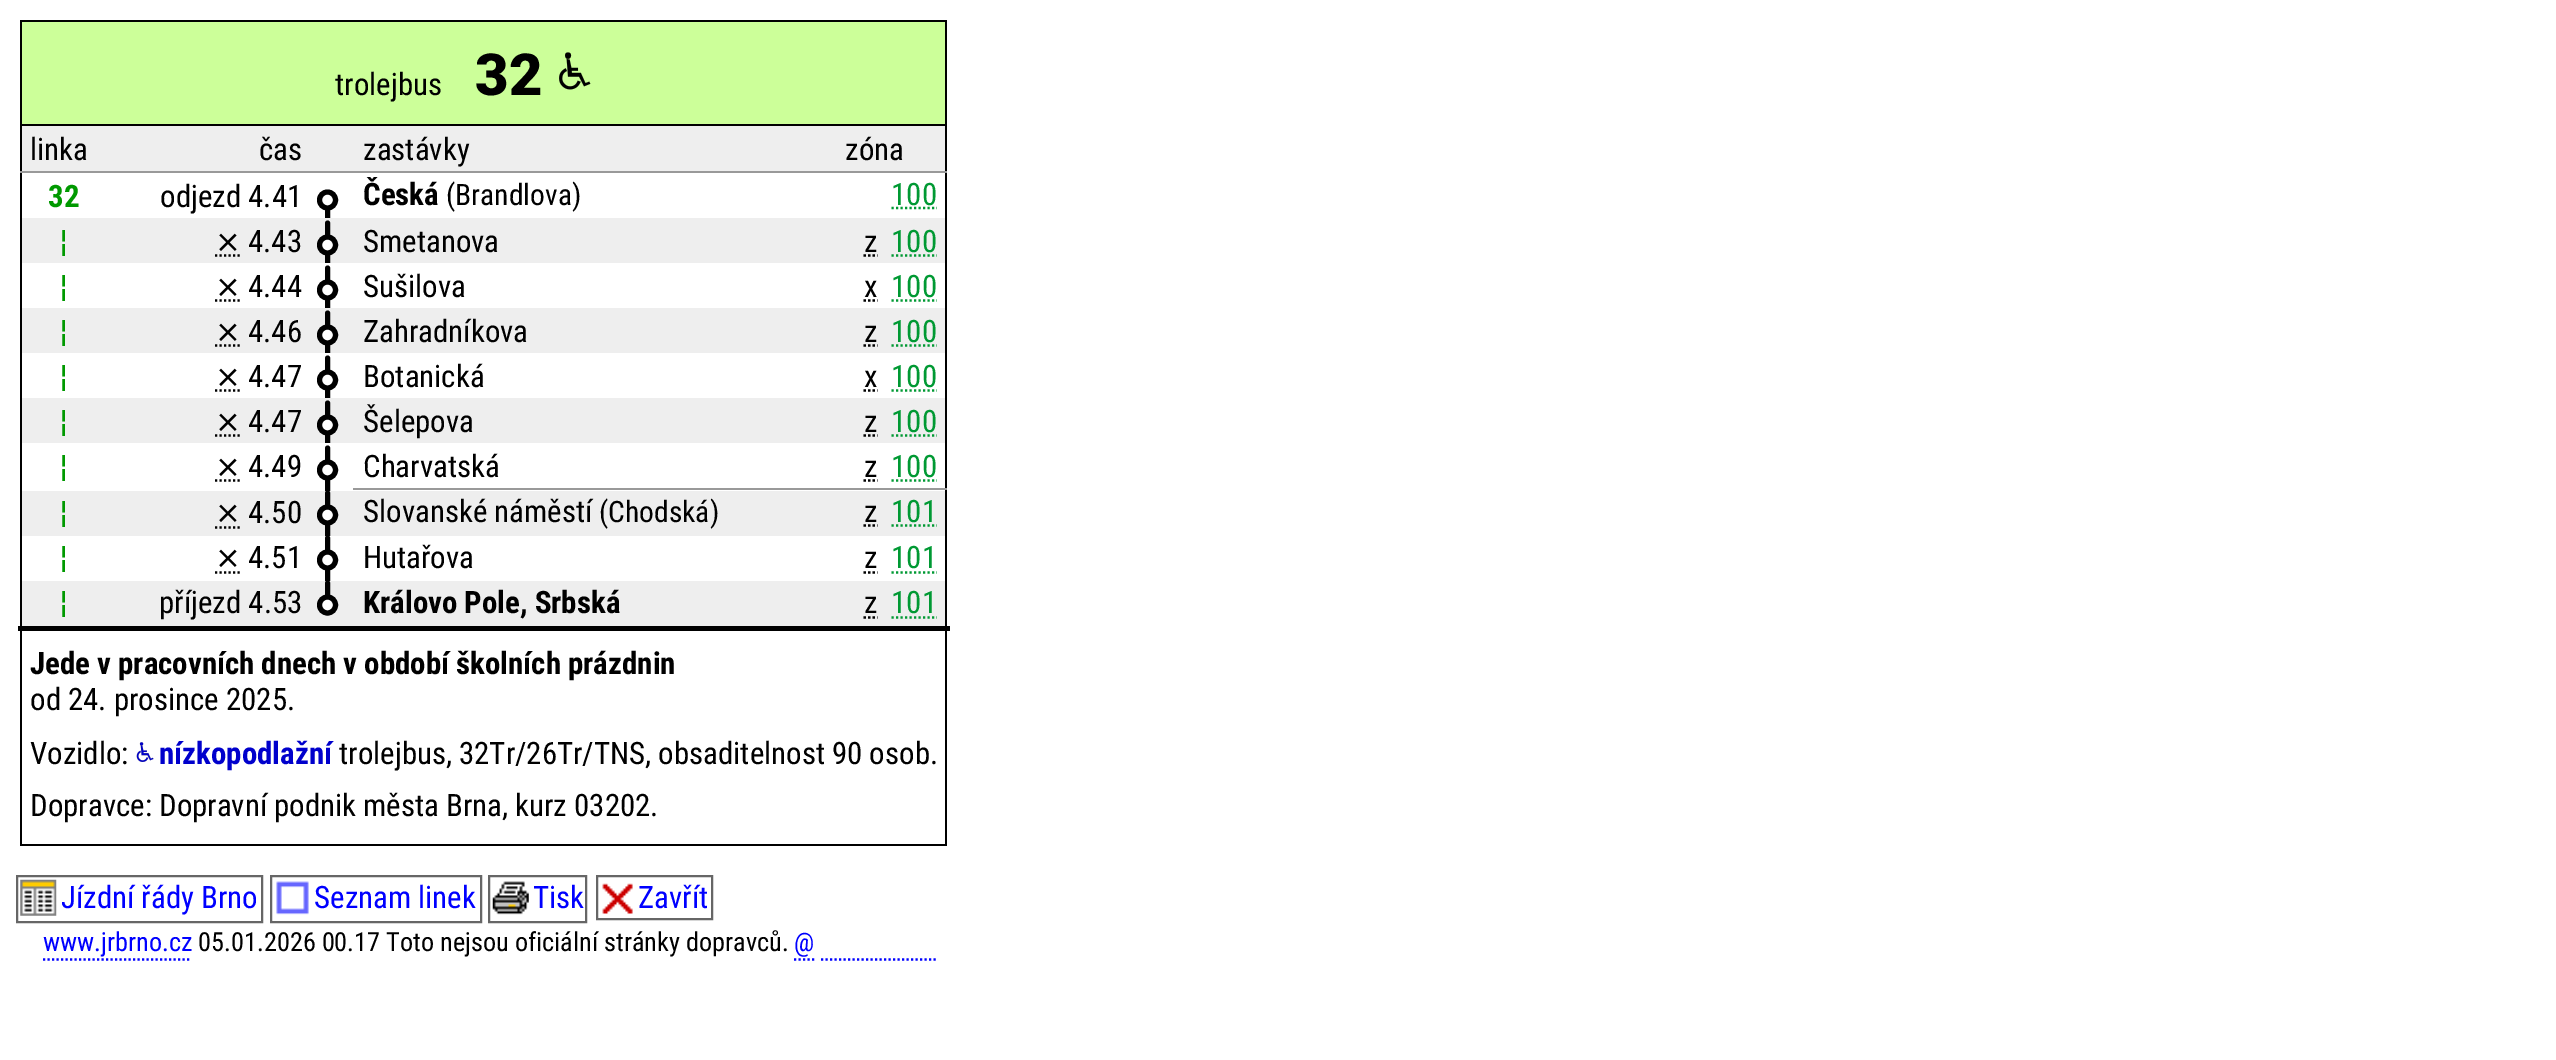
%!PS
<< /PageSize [2556 1060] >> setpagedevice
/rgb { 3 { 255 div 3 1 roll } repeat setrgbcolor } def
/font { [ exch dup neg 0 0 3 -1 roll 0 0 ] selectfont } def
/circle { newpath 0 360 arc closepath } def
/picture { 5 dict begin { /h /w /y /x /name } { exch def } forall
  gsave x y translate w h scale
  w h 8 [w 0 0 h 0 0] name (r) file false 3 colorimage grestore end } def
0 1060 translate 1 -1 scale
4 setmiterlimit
255 255 255 rgb
0 0 2556 1060 rectfill
[
  [20 20 927 2 0 0 0]
  [945 20 2 826 0 0 0]
  [20 844 927 2 0 0 0]
  [20 20 2 826 0 0 0]
  [22 22 923 102 204 255 153]
  [20 124 927 2 0 0 0]
] { aload pop rgb rectfill } forall
(img/1.rgb) 559 52 32 38 picture
238 238 238 rgb
22 126 923 45 rectfill
gsave
311 173 45 45 rectclip
0 0 0 rgb
5 setlinewidth
1 setlinecap
327.5 200 moveto 327.5 278 lineto stroke
grestore
255 255 255 rgb
327.5 200 8 circle gsave fill grestore
0 0 0 rgb
5 setlinewidth
stroke
153 153 153 rgb
20 171 927 2 rectfill
0 153 51 rgb
2.2 setlinewidth
[2.25 2.25] 0 setdash
891.5 208 moveto 937 208 lineto stroke
238 238 238 rgb
22 218 923 45 rectfill
0 0 0 rgb
215 255.5 moveto 241 255.5 lineto stroke
gsave
311 218 45 45 rectclip
5 setlinewidth
1 setlinecap
[] 0 setdash
327.5 223 moveto 327.5 323 lineto stroke
grestore
255 255 255 rgb
327.5 245 8 circle gsave fill grestore
0 0 0 rgb
5 setlinewidth
[] 0 setdash
stroke
2.2 setlinewidth
863.5 255.5 moveto 866 255.5 lineto 868 255.5 moveto 870.5 255.5 lineto 872.5 255.5 moveto 875 255.5 lineto 877 255.5 moveto 877.5 255.5 lineto stroke
0 153 51 rgb
[2.25 2.25] 0 setdash
891.5 255.5 moveto 937 255.5 lineto stroke
0 0 0 rgb
215 300.5 moveto 241 300.5 lineto stroke
gsave
311 263 45 45 rectclip
5 setlinewidth
1 setlinecap
[] 0 setdash
327.5 268 moveto 327.5 368 lineto stroke
grestore
255 255 255 rgb
327.5 290 8 circle gsave fill grestore
0 0 0 rgb
5 setlinewidth
[] 0 setdash
stroke
2.2 setlinewidth
863.5 300.5 moveto 866 300.5 lineto 868 300.5 moveto 870.5 300.5 lineto 872.5 300.5 moveto 875 300.5 lineto 877 300.5 moveto 877.5 300.5 lineto stroke
0 153 51 rgb
[2.25 2.25] 0 setdash
891.5 300.5 moveto 937 300.5 lineto stroke
238 238 238 rgb
22 308 923 45 rectfill
0 0 0 rgb
215 345.5 moveto 241 345.5 lineto stroke
gsave
311 308 45 45 rectclip
5 setlinewidth
1 setlinecap
[] 0 setdash
327.5 313 moveto 327.5 413 lineto stroke
grestore
255 255 255 rgb
327.5 335 8 circle gsave fill grestore
0 0 0 rgb
5 setlinewidth
[] 0 setdash
stroke
2.2 setlinewidth
863.5 345.5 moveto 866 345.5 lineto 868 345.5 moveto 870.5 345.5 lineto 872.5 345.5 moveto 875 345.5 lineto 877 345.5 moveto 877.5 345.5 lineto stroke
0 153 51 rgb
[2.25 2.25] 0 setdash
891.5 345.5 moveto 937 345.5 lineto stroke
0 0 0 rgb
215 390.5 moveto 241 390.5 lineto stroke
gsave
311 353 45 45 rectclip
5 setlinewidth
1 setlinecap
[] 0 setdash
327.5 358 moveto 327.5 458 lineto stroke
grestore
255 255 255 rgb
327.5 380 8 circle gsave fill grestore
0 0 0 rgb
5 setlinewidth
[] 0 setdash
stroke
2.2 setlinewidth
863.5 390.5 moveto 866 390.5 lineto 868 390.5 moveto 870.5 390.5 lineto 872.5 390.5 moveto 875 390.5 lineto 877 390.5 moveto 877.5 390.5 lineto stroke
0 153 51 rgb
[2.25 2.25] 0 setdash
891.5 390.5 moveto 937 390.5 lineto stroke
238 238 238 rgb
22 398 923 45 rectfill
0 0 0 rgb
215 435.5 moveto 241 435.5 lineto stroke
gsave
311 398 45 45 rectclip
5 setlinewidth
1 setlinecap
[] 0 setdash
327.5 403 moveto 327.5 503 lineto stroke
grestore
255 255 255 rgb
327.5 425 8 circle gsave fill grestore
0 0 0 rgb
5 setlinewidth
[] 0 setdash
stroke
2.2 setlinewidth
863.5 435.5 moveto 866 435.5 lineto 868 435.5 moveto 870.5 435.5 lineto 872.5 435.5 moveto 875 435.5 lineto 877 435.5 moveto 877.5 435.5 lineto stroke
0 153 51 rgb
[2.25 2.25] 0 setdash
891.5 435.5 moveto 937 435.5 lineto stroke
0 0 0 rgb
215 480.5 moveto 241 480.5 lineto stroke
gsave
311 443 45 48 rectclip
5 setlinewidth
1 setlinecap
[] 0 setdash
327.5 448 moveto 327.5 548 lineto stroke
grestore
255 255 255 rgb
327.5 470 8 circle gsave fill grestore
0 0 0 rgb
5 setlinewidth
[] 0 setdash
stroke
2.2 setlinewidth
863.5 480.5 moveto 866 480.5 lineto 868 480.5 moveto 870.5 480.5 lineto 872.5 480.5 moveto 875 480.5 lineto 877 480.5 moveto 877.5 480.5 lineto stroke
0 153 51 rgb
[2.25 2.25] 0 setdash
891.5 480.5 moveto 937 480.5 lineto stroke
238 238 238 rgb
22 491 923 45 rectfill
0 0 0 rgb
215 527.5 moveto 241 527.5 lineto stroke
gsave
311 491 45 45 rectclip
5 setlinewidth
1 setlinecap
[] 0 setdash
327.5 493 moveto 327.5 593 lineto stroke
grestore
255 255 255 rgb
327.5 515 8 circle gsave fill grestore
0 0 0 rgb
5 setlinewidth
[] 0 setdash
stroke
153 153 153 rgb
353 488 594 2 rectfill
0 0 0 rgb
2.2 setlinewidth
863.5 525.5 moveto 866 525.5 lineto 868 525.5 moveto 870.5 525.5 lineto 872.5 525.5 moveto 875 525.5 lineto 877 525.5 moveto 877.5 525.5 lineto stroke
0 153 51 rgb
[2.25 2.25] 0 setdash
891.5 525.5 moveto 937 525.5 lineto stroke
0 0 0 rgb
215 572.5 moveto 241 572.5 lineto stroke
gsave
311 536 45 45 rectclip
5 setlinewidth
1 setlinecap
[] 0 setdash
327.5 538 moveto 327.5 638 lineto stroke
grestore
255 255 255 rgb
327.5 560 8 circle gsave fill grestore
0 0 0 rgb
5 setlinewidth
[] 0 setdash
stroke
2.2 setlinewidth
863.5 572.5 moveto 866 572.5 lineto 868 572.5 moveto 870.5 572.5 lineto 872.5 572.5 moveto 875 572.5 lineto 877 572.5 moveto 877.5 572.5 lineto stroke
0 153 51 rgb
[2.25 2.25] 0 setdash
891.5 572.5 moveto 937 572.5 lineto stroke
238 238 238 rgb
22 581 923 45 rectfill
gsave
311 581 45 47 rectclip
0 0 0 rgb
5 setlinewidth
1 setlinecap
[] 0 setdash
327.5 583 moveto 327.5 605 lineto stroke
grestore
255 255 255 rgb
327.5 605 8 circle gsave fill grestore
0 0 0 rgb
5 setlinewidth
[] 0 setdash
stroke
2.2 setlinewidth
863.5 617.5 moveto 866 617.5 lineto 868 617.5 moveto 870.5 617.5 lineto 872.5 617.5 moveto 875 617.5 lineto 877 617.5 moveto 877.5 617.5 lineto stroke
0 153 51 rgb
[2.25 2.25] 0 setdash
891.5 617.5 moveto 937 617.5 lineto stroke
0 0 0 rgb
18 626 932 5 rectfill
(img/2.rgb) 136 742 18 20 picture
102 102 102 rgb
2 setlinewidth
[] 0 setdash
17 876 245 46 rectstroke
(img/3.rgb) 20 879 37 37 picture
271 876 210 46 rectstroke
(img/4.rgb) 276 881 33 34 picture
489 876 97 46 rectstroke
(img/5.rgb) 492 881 37 34 picture
597 876 115 43 rectstroke
(img/6.rgb) 602 883 31 31 picture
0 0 255 rgb
2.2 setlinewidth
[2.25 2.25] 0 setdash
43 959.5 moveto 191 959.5 lineto stroke
794 959.5 moveto 814.5 959.5 lineto stroke
821 959.5 moveto 938 959.5 lineto stroke
/RobotoCondensed-Regular 30.9 font
0 0 0 rgb
335 95 moveto (trolejbus) show
/Roboto-Black 58 font
475 95 moveto (32) show
/RobotoCondensed-Regular 30.9 font
[
  [(linka) 30 160]
  [(čas) 259 160]
  [(zastávky) 363 160]
  [(zóna) 845 160]
] { aload pop moveto show } forall
/RobotoCondensed-Bold 30.9 font
0 153 0 rgb
48 207 moveto (32) show
/RobotoCondensed-Regular 30.9 font
0 0 0 rgb
160 207 moveto (odjezd 4.41) show
/RobotoCondensed-Bold 30.9 font
363 205 moveto (Česká) show
/RobotoCondensed-Regular 29.5 font
446 205 moveto (\(Brandlova\)) show
/RobotoCondensed-Regular 30.9 font
0 153 51 rgb
891 205 moveto (100) show
0 153 0 rgb
60 252 moveto (¦) show
/DejaVuSans-Regular 30.9 font
0 0 0 rgb
215 252 moveto (⨯) show
/RobotoCondensed-Regular 30.9 font
[
  [(4.43) 248 252]
  [(Smetanova) 363 252]
  [(z) 864 252]
] { aload pop moveto show } forall
0 153 51 rgb
891 252 moveto (100) show
0 153 0 rgb
60 297 moveto (¦) show
/DejaVuSans-Regular 30.9 font
0 0 0 rgb
215 297 moveto (⨯) show
/RobotoCondensed-Regular 30.9 font
[
  [(4.44) 248 297]
  [(Sušilova) 363 297]
  [(x) 864 297]
] { aload pop moveto show } forall
0 153 51 rgb
891 297 moveto (100) show
0 153 0 rgb
60 342 moveto (¦) show
/DejaVuSans-Regular 30.9 font
0 0 0 rgb
215 342 moveto (⨯) show
/RobotoCondensed-Regular 30.9 font
[
  [(4.46) 248 342]
  [(Zahradníkova) 363 342]
  [(z) 864 342]
] { aload pop moveto show } forall
0 153 51 rgb
891 342 moveto (100) show
0 153 0 rgb
60 387 moveto (¦) show
/DejaVuSans-Regular 30.9 font
0 0 0 rgb
215 387 moveto (⨯) show
/RobotoCondensed-Regular 30.9 font
[
  [(4.47) 248 387]
  [(Botanická) 363 387]
  [(x) 864 387]
] { aload pop moveto show } forall
0 153 51 rgb
891 387 moveto (100) show
0 153 0 rgb
60 432 moveto (¦) show
/DejaVuSans-Regular 30.9 font
0 0 0 rgb
215 432 moveto (⨯) show
/RobotoCondensed-Regular 30.9 font
[
  [(4.47) 248 432]
  [(Šelepova) 363 432]
  [(z) 864 432]
] { aload pop moveto show } forall
0 153 51 rgb
891 432 moveto (100) show
0 153 0 rgb
60 477 moveto (¦) show
/DejaVuSans-Regular 30.9 font
0 0 0 rgb
215 477 moveto (⨯) show
/RobotoCondensed-Regular 30.9 font
[
  [(4.49) 248 477]
  [(Charvatská) 363 477]
  [(z) 864 477]
] { aload pop moveto show } forall
0 153 51 rgb
891 477 moveto (100) show
0 153 0 rgb
60 523 moveto (¦) show
/DejaVuSans-Regular 30.9 font
0 0 0 rgb
215 523 moveto (⨯) show
/RobotoCondensed-Regular 30.9 font
248 523 moveto (4.50) show
363 522 moveto (Slovanské náměstí) show
/RobotoCondensed-Regular 29.5 font
599 522 moveto (\(Chodská\)) show
/RobotoCondensed-Regular 30.9 font
864 522 moveto (z) show
0 153 51 rgb
891 522 moveto (101) show
0 153 0 rgb
60 568 moveto (¦) show
/DejaVuSans-Regular 30.9 font
0 0 0 rgb
215 568 moveto (⨯) show
/RobotoCondensed-Regular 30.9 font
[
  [(4.51) 248 568]
  [(Hutařova) 363 568]
  [(z) 864 568]
] { aload pop moveto show } forall
0 153 51 rgb
891 568 moveto (101) show
0 153 0 rgb
60 613 moveto (¦) show
0 0 0 rgb
159 613 moveto (příjezd 4.53) show
/RobotoCondensed-Bold 30.9 font
363 613 moveto (Královo Pole, Srbská) show
/RobotoCondensed-Regular 30.9 font
864 613 moveto (z) show
0 153 51 rgb
891 613 moveto (101) show
/RobotoCondensed-Bold 30.9 font
0 0 0 rgb
30 674 moveto (Jede v pracovních dnech v období školních prázdnin) show
/RobotoCondensed-Regular 30.9 font
30 710 moveto (od 24. prosince 2025.) show
30 764 moveto (Vozidlo:) show
/RobotoCondensed-Bold 30.9 font
0 0 204 rgb
159 764 moveto (nízkopodlažní) show
/RobotoCondensed-Regular 30.9 font
0 0 0 rgb
339 764 moveto (trolejbus, 32Tr/26Tr/TNS, obsaditelnost 90 osob.) show
30 816 moveto (Dopravce: Dopravní podnik města Brna, kurz 03202.) show
0 0 255 rgb
[
  [(Jízdní řády Brno) 61 908]
  [(Seznam linek) 314 908]
  [(Tisk) 533 908]
  [(Zavřít) 638 908]
] { aload pop moveto show } forall
/RobotoCondensed-Regular 26.25 font
43 951 moveto (www.jrbrno.cz) show
0 0 0 rgb
198 951 moveto (05.01.2026 00.17 Toto nejsou oficiální stránky dopravců.) show
0 0 255 rgb
794 951 moveto (@) show
showpage
